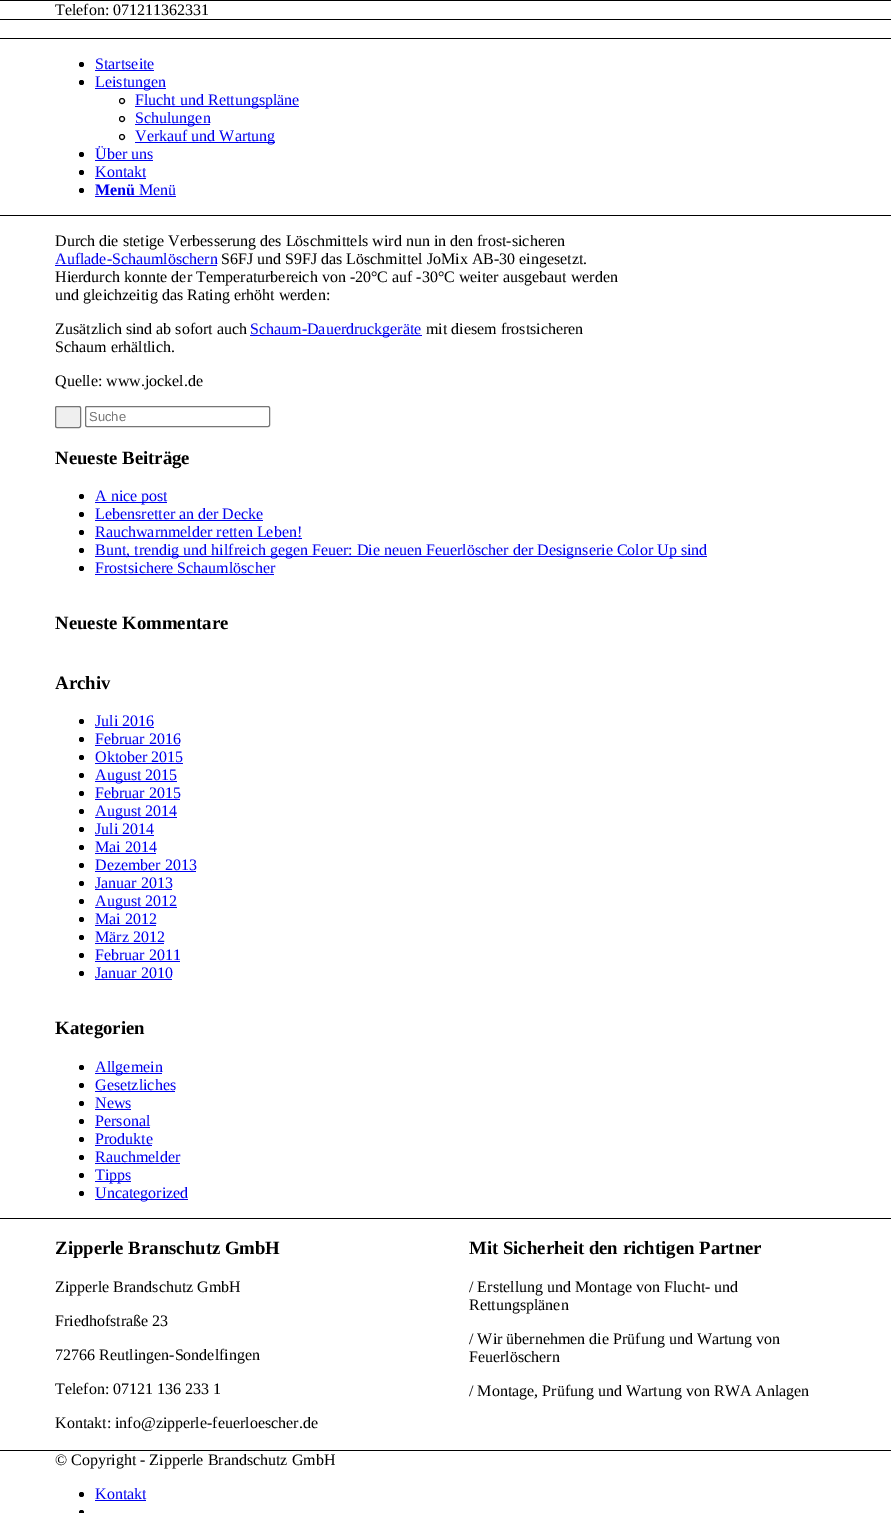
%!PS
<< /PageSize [891 1513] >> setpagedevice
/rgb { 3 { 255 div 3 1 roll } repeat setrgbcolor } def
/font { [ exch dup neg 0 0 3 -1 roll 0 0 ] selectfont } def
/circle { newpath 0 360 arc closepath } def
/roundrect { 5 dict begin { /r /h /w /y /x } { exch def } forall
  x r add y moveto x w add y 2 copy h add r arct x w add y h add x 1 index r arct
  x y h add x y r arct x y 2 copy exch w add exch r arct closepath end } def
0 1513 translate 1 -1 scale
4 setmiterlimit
255 255 255 rgb
0 0 891 1513 rectfill
[
  [0 0 891 1 0 0 0]
  [0 19 891 1 0 0 0]
  [0 38 891 1 0 0 0]
] { aload pop rgb rectfill } forall
81.5 64.5 2.5 circle fill
0 0 238 rgb
95 70 59 1 rectfill
0 0 0 rgb
81.5 82.5 2.5 circle fill
0 0 238 rgb
95 88 71 1 rectfill
0 0 0 rgb
122 101 2.5 circle stroke
0 0 238 rgb
135 106 164 1 rectfill
0 0 0 rgb
122 119 2.5 circle stroke
0 0 238 rgb
135 124 75 1 rectfill
0 0 0 rgb
122 137 2.5 circle stroke
0 0 238 rgb
135 142 140 1 rectfill
0 0 0 rgb
81.5 154.5 2.5 circle fill
0 0 238 rgb
95 160 58 1 rectfill
0 0 0 rgb
81.5 172.5 2.5 circle fill
0 0 238 rgb
95 178 51 1 rectfill
0 0 0 rgb
81.5 190.5 2.5 circle fill
[
  [95 196 81 1 0 0 238]
  [0 215 891 1 0 0 0]
  [55 265 162 1 0 0 238]
  [250 335 172 1 0 0 238]
] { aload pop rgb rectfill } forall
239 239 239 rgb
55.5 406.5 25 21 1.5 roundrect gsave fill grestore
118 118 118 rgb
stroke
85.5 406.5 184 20 1.5 roundrect stroke
0 0 0 rgb
81.5 496.5 2.5 circle fill
0 0 238 rgb
95 502 72 1 rectfill
0 0 0 rgb
81.5 514.5 2.5 circle fill
0 0 238 rgb
95 520 168 1 rectfill
0 0 0 rgb
81.5 532.5 2.5 circle fill
0 0 238 rgb
95 538 207 1 rectfill
0 0 0 rgb
81.5 550.5 2.5 circle fill
0 0 238 rgb
95 556 612 1 rectfill
0 0 0 rgb
81.5 568.5 2.5 circle fill
0 0 238 rgb
95 574 179 1 rectfill
0 0 0 rgb
81.5 721.5 2.5 circle fill
0 0 238 rgb
95 727 59 1 rectfill
0 0 0 rgb
81.5 739.5 2.5 circle fill
0 0 238 rgb
95 745 85 1 rectfill
0 0 0 rgb
81.5 757.5 2.5 circle fill
0 0 238 rgb
95 763 88 1 rectfill
0 0 0 rgb
81.5 775.5 2.5 circle fill
0 0 238 rgb
95 781 82 1 rectfill
0 0 0 rgb
81.5 793.5 2.5 circle fill
0 0 238 rgb
95 799 85 1 rectfill
0 0 0 rgb
81.5 811.5 2.5 circle fill
0 0 238 rgb
95 817 82 1 rectfill
0 0 0 rgb
81.5 829.5 2.5 circle fill
0 0 238 rgb
95 835 59 1 rectfill
0 0 0 rgb
81.5 847.5 2.5 circle fill
0 0 238 rgb
95 853 61 1 rectfill
0 0 0 rgb
81.5 865.5 2.5 circle fill
0 0 238 rgb
95 871 101 1 rectfill
0 0 0 rgb
81.5 883.5 2.5 circle fill
0 0 238 rgb
95 889 77 1 rectfill
0 0 0 rgb
81.5 901.5 2.5 circle fill
0 0 238 rgb
95 907 82 1 rectfill
0 0 0 rgb
81.5 919.5 2.5 circle fill
0 0 238 rgb
95 925 61 1 rectfill
0 0 0 rgb
81.5 937.5 2.5 circle fill
0 0 238 rgb
95 943 69 1 rectfill
0 0 0 rgb
81.5 955.5 2.5 circle fill
0 0 238 rgb
95 961 85 1 rectfill
0 0 0 rgb
81.5 973.5 2.5 circle fill
0 0 238 rgb
95 979 77 1 rectfill
0 0 0 rgb
81.5 1067.5 2.5 circle fill
0 0 238 rgb
95 1073 67 1 rectfill
0 0 0 rgb
81.5 1085.5 2.5 circle fill
0 0 238 rgb
95 1091 80 1 rectfill
0 0 0 rgb
81.5 1103.5 2.5 circle fill
0 0 238 rgb
95 1109 36 1 rectfill
0 0 0 rgb
81.5 1121.5 2.5 circle fill
0 0 238 rgb
95 1127 55 1 rectfill
0 0 0 rgb
81.5 1139.5 2.5 circle fill
0 0 238 rgb
95 1145 57 1 rectfill
0 0 0 rgb
81.5 1157.5 2.5 circle fill
0 0 238 rgb
95 1163 85 1 rectfill
0 0 0 rgb
81.5 1175.5 2.5 circle fill
0 0 238 rgb
95 1181 36 1 rectfill
0 0 0 rgb
81.5 1193.5 2.5 circle fill
[
  [95 1199 93 1 0 0 238]
  [0 1218 891 1 0 0 0]
  [0 1450 891 1 0 0 0]
] { aload pop rgb rectfill } forall
81.5 1494.5 2.5 circle fill
0 0 238 rgb
95 1500 51 1 rectfill
0 0 0 rgb
81.5 1512.5 2.5 circle fill
/LiberationSerif-Regular 16 font
55 15 moveto (Telefon: 071211362331) show
0 0 238 rgb
[
  [(Startseite) 95 69]
  [(Leistungen) 95 87]
  [(Flucht und Rettungspläne) 135 105]
  [(Schulungen) 135 123]
  [(Verkauf und Wartung) 135 141]
  [(Über uns) 95 159]
  [(Kontakt) 95 177]
] { aload pop moveto show } forall
/LiberationSerif-Bold 16 font
95 195 moveto (Menü) show
/LiberationSerif-Regular 16 font
139 195 moveto (Menü) show
0 0 0 rgb
55 246 moveto (Durch die stetige Verbesserung des Löschmittels wird nun in den frost-sicheren) show
0 0 238 rgb
55 264 moveto (Auflade-Schaumlöschern) show
0 0 0 rgb
[
  [(S6FJ und S9FJ das Löschmittel JoMix AB-30 eingesetzt.) 221 264]
  [(Hierdurch konnte der Temperaturbereich von -20°C auf -30°C weiter ausgebaut werden) 55 282]
  [(und gleichzeitig das Rating erhöht werden:) 55 300]
  [(Zusätzlich sind ab sofort auch) 55 334]
] { aload pop moveto show } forall
0 0 238 rgb
250 334 moveto (Schaum-Dauerdruckgeräte) show
0 0 0 rgb
[
  [(mit diesem frostsicheren) 426 334]
  [(Schaum erhältlich.) 55 352]
  [(Quelle: www.jockel.de) 55 386]
] { aload pop moveto show } forall
/LiberationSans-Regular 13 font
117 117 117 rgb
89 421 moveto (Suche) show
/LiberationSerif-Bold 18.75 font
0 0 0 rgb
55 464 moveto (Neueste Beiträge) show
/LiberationSerif-Regular 16 font
0 0 238 rgb
[
  [(A nice post) 95 501]
  [(Lebensretter an der Decke) 95 519]
  [(Rauchwarnmelder retten Leben!) 95 537]
  [(Bunt, trendig und hilfreich gegen Feuer: Die neuen Feuerlöscher der Designserie Color Up sind) 95 555]
  [(Frostsichere Schaumlöscher) 95 573]
] { aload pop moveto show } forall
/LiberationSerif-Bold 18.75 font
0 0 0 rgb
55 629 moveto (Neueste Kommentare) show
55 689 moveto (Archiv) show
/LiberationSerif-Regular 16 font
0 0 238 rgb
[
  [(Juli 2016) 95 726]
  [(Februar 2016) 95 744]
  [(Oktober 2015) 95 762]
  [(August 2015) 95 780]
  [(Februar 2015) 95 798]
  [(August 2014) 95 816]
  [(Juli 2014) 95 834]
  [(Mai 2014) 95 852]
  [(Dezember 2013) 95 870]
  [(Januar 2013) 95 888]
  [(August 2012) 95 906]
  [(Mai 2012) 95 924]
  [(März 2012) 95 942]
  [(Februar 2011) 95 960]
  [(Januar 2010) 95 978]
] { aload pop moveto show } forall
/LiberationSerif-Bold 18.75 font
0 0 0 rgb
55 1034 moveto (Kategorien) show
/LiberationSerif-Regular 16 font
0 0 238 rgb
[
  [(Allgemein) 95 1072]
  [(Gesetzliches) 95 1090]
  [(News) 95 1108]
  [(Personal) 95 1126]
  [(Produkte) 95 1144]
  [(Rauchmelder) 95 1162]
  [(Tipps) 95 1180]
  [(Uncategorized) 95 1198]
] { aload pop moveto show } forall
/LiberationSerif-Bold 18.75 font
0 0 0 rgb
55 1254 moveto (Zipperle Branschutz GmbH) show
/LiberationSerif-Regular 16 font
[
  [(Zipperle Brandschutz GmbH) 55 1292]
  [(Friedhofstraße 23) 55 1326]
  [(72766 Reutlingen-Sondelfingen) 55 1360]
  [(Telefon: 07121 136 233 1) 55 1394]
  [(Kontakt: info@zipperle-feuerloescher.de) 55 1428]
] { aload pop moveto show } forall
/LiberationSerif-Bold 18.75 font
469 1254 moveto (Mit Sicherheit den richtigen Partner) show
/LiberationSerif-Regular 16 font
[
  [(/ Erstellung und Montage von Flucht- und) 469 1292]
  [(Rettungsplänen) 469 1310]
  [(/ Wir übernehmen die Prüfung und Wartung von) 469 1344]
  [(Feuerlöschern) 469 1362]
  [(/ Montage, Prüfung und Wartung von RWA Anlagen) 469 1396]
  [(© Copyright - Zipperle Brandschutz GmbH) 55 1465]
] { aload pop moveto show } forall
0 0 238 rgb
95 1499 moveto (Kontakt) show
showpage
